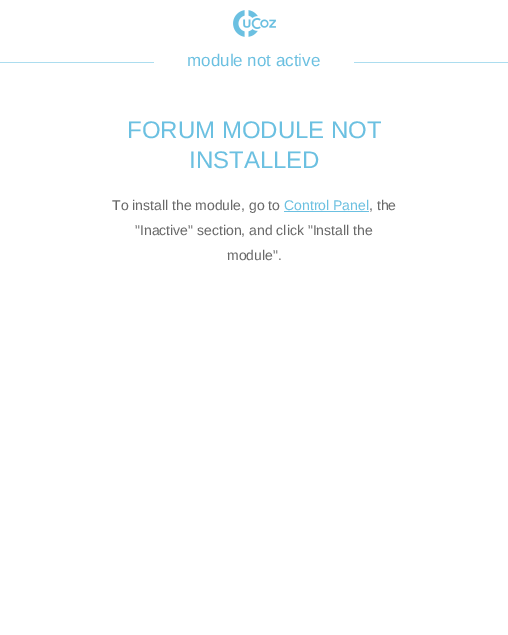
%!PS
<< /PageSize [508 635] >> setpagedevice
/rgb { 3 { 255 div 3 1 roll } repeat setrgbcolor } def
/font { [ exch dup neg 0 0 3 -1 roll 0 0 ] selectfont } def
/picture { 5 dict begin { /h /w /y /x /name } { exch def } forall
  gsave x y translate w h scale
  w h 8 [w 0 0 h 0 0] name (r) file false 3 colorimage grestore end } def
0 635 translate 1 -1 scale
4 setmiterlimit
255 255 255 rgb
0 0 508 635 rectfill
(img/1.rgb) 233 10 43 27 picture
[
  [0 62 508 1 172 221 239]
  [154 62 200 1 255 255 255]
  [284 211 85 1 107 192 225]
] { aload pop rgb rectfill } forall
/LiberationSans-Regular 17 font
187 66 moveto (module not active) show
/LiberationSans-Regular 24 font
127 138 moveto (FORUM MODULE NOT) show
189 168 moveto (INSTALLED) show
/LiberationSans-Regular 14 font
104 104 104 rgb
112 210 moveto (To install the module, go to) show
107 192 225 rgb
284 210 moveto (Control Panel) show
104 104 104 rgb
[
  [(, the) 369 210]
  [("Inactive" section, and click "Install the) 135 235]
  [(module".) 227 260]
] { aload pop moveto show } forall
showpage
